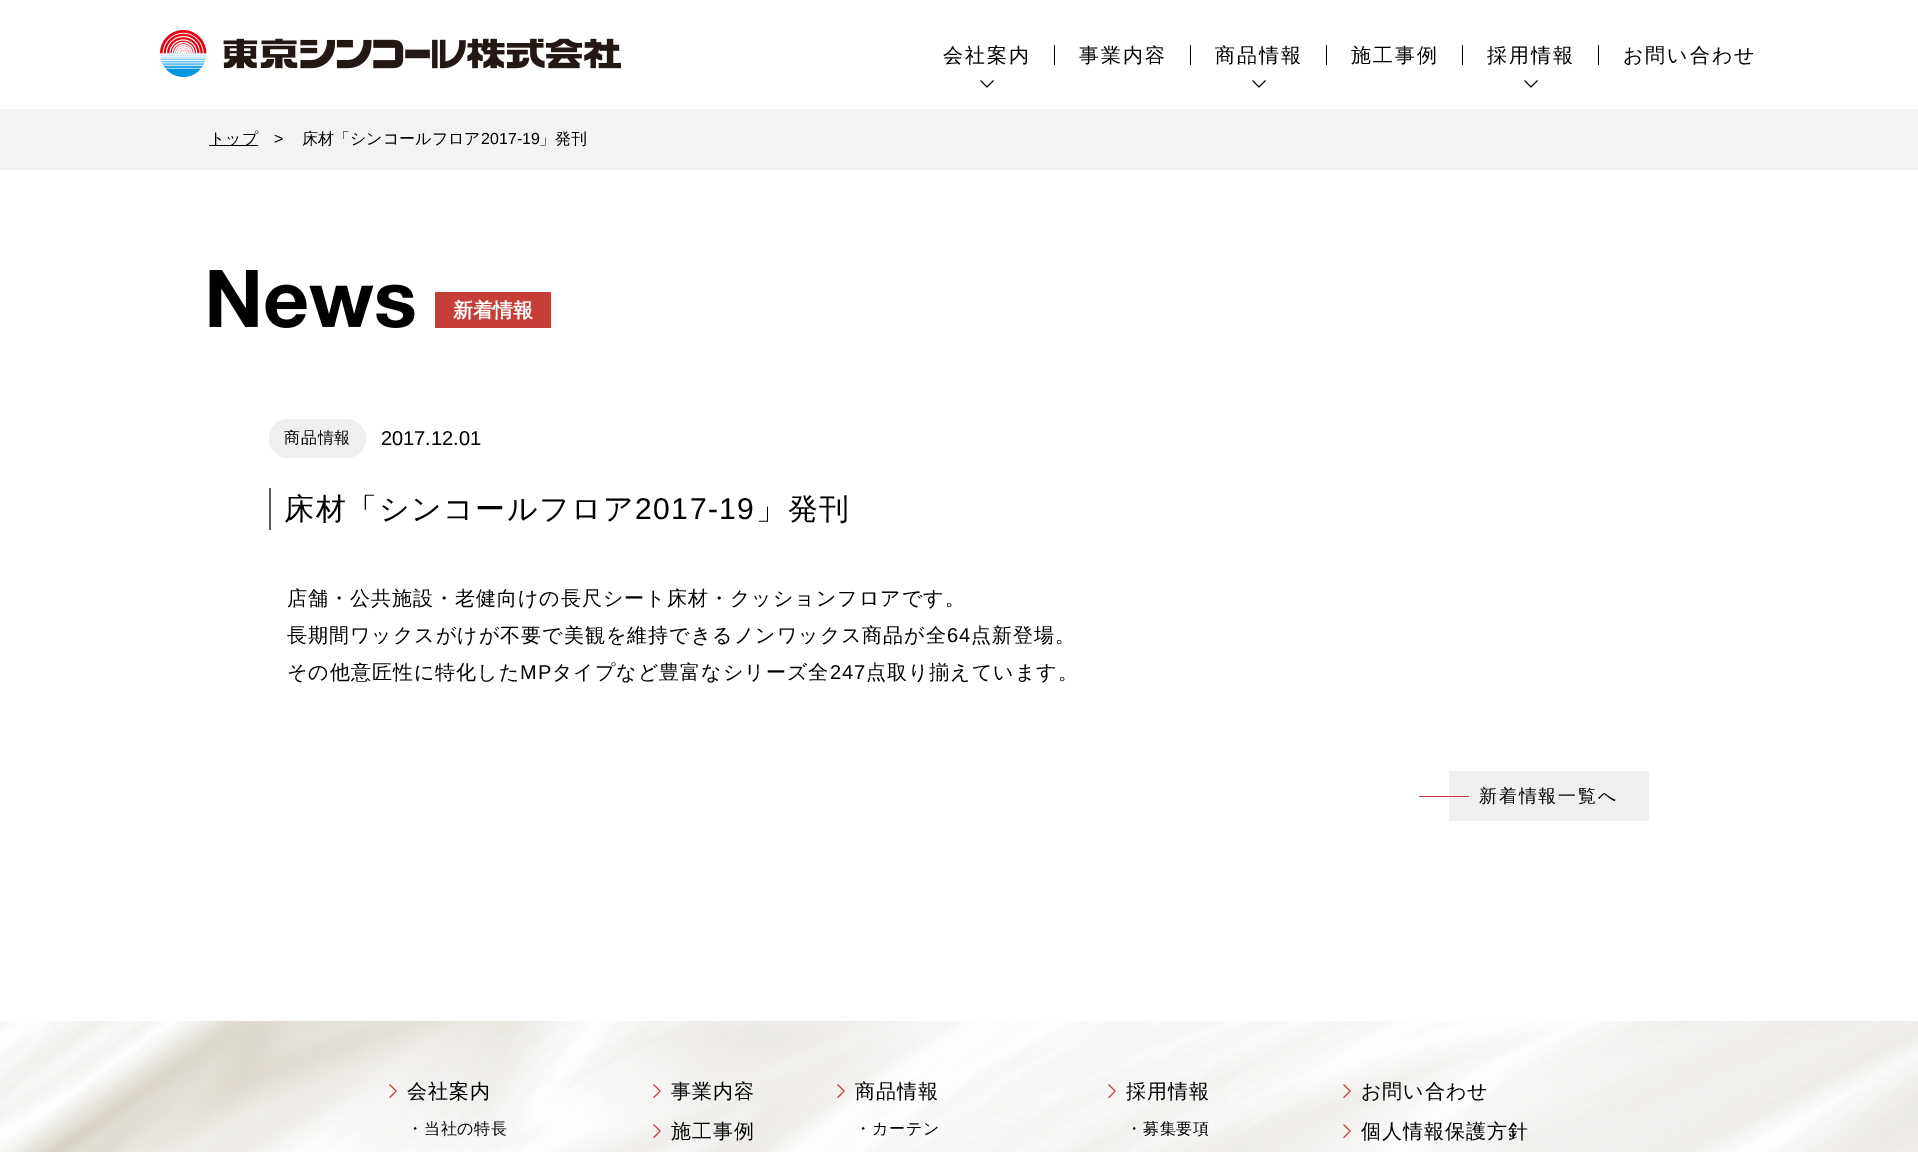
%!PS
<< /PageSize [1918 1152] >> setpagedevice
/rgb { 3 { 255 div 3 1 roll } repeat setrgbcolor } def
/font { [ exch dup neg 0 0 3 -1 roll 0 0 ] selectfont } def
/roundrect { 5 dict begin { /r /h /w /y /x } { exch def } forall
  x r add y moveto x w add y 2 copy h add r arct x w add y h add x 1 index r arct
  x y h add x y r arct x y 2 copy exch w add exch r arct closepath end } def
/picture { 5 dict begin { /h /w /y /x /name } { exch def } forall
  gsave x y translate w h scale
  w h 8 [w 0 0 h 0 0] name (r) file false 3 colorimage grestore end } def
0 1152 translate 1 -1 scale
4 setmiterlimit
255 255 255 rgb
0 0 1918 1152 rectfill
(img/1.rgb) 160 30 461 47 picture
1 1 1 rgb
1054 45 1 20 rectfill
(img/2.rgb) 980 80 14 8 picture
1190 45 1 20 rectfill
1326 45 1 20 rectfill
(img/2.rgb) 1252 80 14 8 picture
1462 45 1 20 rectfill
1598 45 1 20 rectfill
(img/2.rgb) 1524 80 14 8 picture
243 243 243 rgb
0 109 1918 61 rectfill
0 0 0 rgb
209 145 49 1 rectfill
(img/3.rgb) 209 270 206 58 picture
197 62 56 rgb
435 292 116 36 rectfill
239 239 239 rgb
269 419 97 39 19.5 roundrect fill
[
  [269 488 2 42 89 89 89]
  [1449 771 200 50 239 239 239]
  [1419 796 50 1 197 62 56]
] { aload pop rgb rectfill } forall
(img/4.rgb) 0 1021 1918 131 picture
(img/5.rgb) 389 1084 8 14 picture
(img/6.rgb) 653 1084 8 14 picture
(img/7.rgb) 653 1124 8 14 picture
(img/8.rgb) 837 1084 8 14 picture
(img/9.rgb) 1108 1084 8 14 picture
(img/10.rgb) 1343 1084 8 14 picture
(img/11.rgb) 1343 1124 8 14 picture
/WenQuanYiZenHei-Medium 20 font
0 0 0 rgb
943 62 moveto 2 0 (会社案内) ashow
1079 62 moveto 2 0 (事業内容) ashow
1215 62 moveto 2 0 (商品情報) ashow
1351 62 moveto 2 0 (施工事例) ashow
1487 62 moveto 2 0 (採用情報) ashow
1623 62 moveto 2 0 (お問い合わせ) ashow
/WenQuanYiZenHei-Medium 16 font
209 144 moveto (トップ) show
/LiberationSans-Regular 16 font
274 144 moveto (>) show
/WenQuanYiZenHei-Medium 16 font
302 144 moveto (床材「シンコールフロア) show
/LiberationSans-Regular 16 font
481 144 moveto (2017-19) show
/WenQuanYiZenHei-Medium 16 font
539 144 moveto (」発刊) show
/WenQuanYiZenHei-Bold 20 font
255 255 255 rgb
453 317 moveto (新着情報) show
/WenQuanYiZenHei-Medium 16 font
0 0 0 rgb
284 443 moveto 0.75 0 (商品情報) ashow
/LiberationSans-Regular 20 font
381 445 moveto (2017.12.01) show
/WenQuanYiZenHei-Medium 30 font
284 519 moveto 1.5 0 (床材「シンコールフロア) ashow
/LiberationSans-Regular 30 font
635 519 moveto 1.5 0 (2017-19) ashow
/WenQuanYiZenHei-Medium 30 font
756 519 moveto 1.5 0 (」発刊) ashow
/WenQuanYiZenHei-Medium 20 font
287 605 moveto 1 0 (店舗・公共施設・老健向けの長尺シート床材・クッションフロアです。) ashow
287 642 moveto 1 0 (長期間ワックスがけが不要で美観を維持できるノンワックス商品が全) ashow
/LiberationSans-Regular 20 font
947 642 moveto 1 0 (64) ashow
/WenQuanYiZenHei-Medium 20 font
971 642 moveto 1 0 (点新登場。) ashow
287 679 moveto 1 0 (その他意匠性に特化した) ashow
/LiberationSans-Regular 20 font
520 679 moveto 1 0 (MP) ashow
/WenQuanYiZenHei-Medium 20 font
552 679 moveto 1 0 (タイプなど豊富なシリーズ全) ashow
/LiberationSans-Regular 20 font
830 679 moveto 1 0 (247) ashow
/WenQuanYiZenHei-Medium 20 font
866 679 moveto 1 0 (点取り揃えています。) ashow
/WenQuanYiZenHei-Medium 18 font
1479 802 moveto 1.75 0 (新着情報一覧へ) ashow
/WenQuanYiZenHei-Medium 20 font
407 1098 moveto 1 0 (会社案内) ashow
/WenQuanYiZenHei-Medium 16 font
407 1134 moveto 0.75 0 (・当社の特長) ashow
/WenQuanYiZenHei-Medium 20 font
671 1098 moveto 1 0 (事業内容) ashow
671 1138 moveto 1 0 (施工事例) ashow
855 1098 moveto 1 0 (商品情報) ashow
/WenQuanYiZenHei-Medium 16 font
855 1134 moveto 0.75 0 (・カーテン) ashow
/WenQuanYiZenHei-Medium 20 font
1126 1098 moveto 1 0 (採用情報) ashow
/WenQuanYiZenHei-Medium 16 font
1126 1134 moveto 0.75 0 (・募集要項) ashow
/WenQuanYiZenHei-Medium 20 font
1361 1098 moveto 1 0 (お問い合わせ) ashow
1361 1138 moveto 1 0 (個人情報保護方針) ashow
showpage
